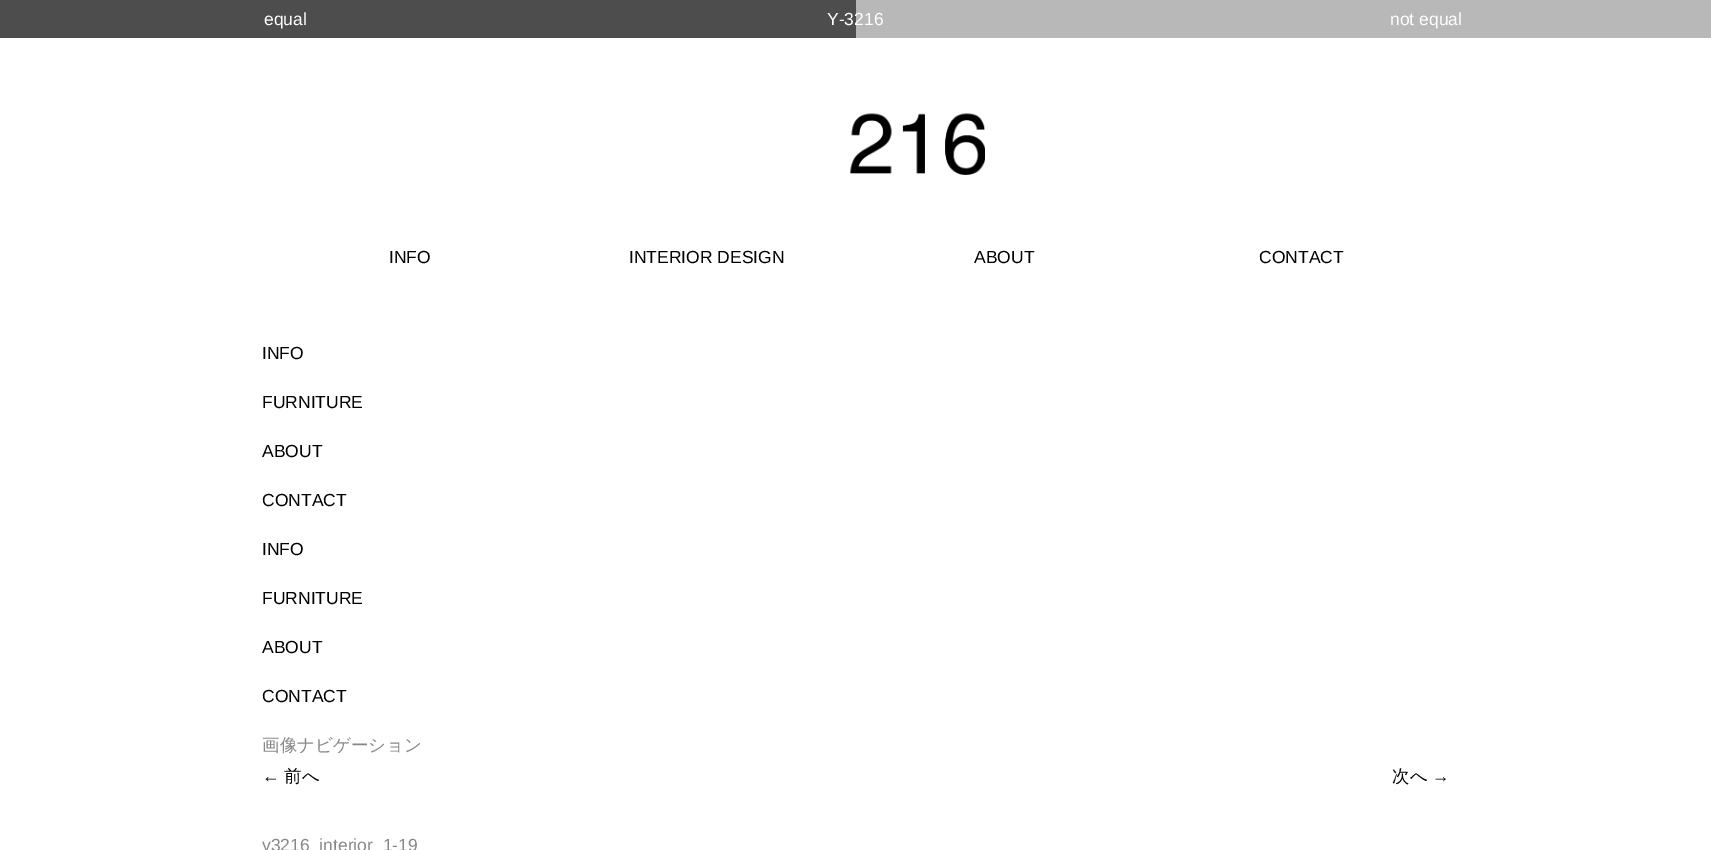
%!PS
<< /PageSize [1711 850] >> setpagedevice
/rgb { 3 { 255 div 3 1 roll } repeat setrgbcolor } def
/font { [ exch dup neg 0 0 3 -1 roll 0 0 ] selectfont } def
/picture { 5 dict begin { /h /w /y /x /name } { exch def } forall
  gsave x y translate w h scale
  w h 8 [w 0 0 h 0 0] name (r) file false 3 colorimage grestore end } def
0 850 translate 1 -1 scale
4 setmiterlimit
255 255 255 rgb
0 0 1711 850 rectfill
184 184 184 rgb
856 0 855 38 rectfill
77 77 77 rgb
0 0 856 38 rectfill
(img/1.rgb) 849 113 136 62 picture
/LiberationSans-Regular 17.5 font
255 255 255 rgb
[
  [(equal) 264 25]
  [(Y-3216) 827 25]
  [(not equal) 1390 25]
] { aload pop moveto show } forall
0 0 0 rgb
[
  [(INFO) 389 263]
  [(INTERIOR DESIGN) 629 263]
  [(ABOUT) 974 263]
  [(CONTACT) 1259 263]
  [(INFO) 262 359]
  [(FURNITURE) 262 408]
  [(ABOUT) 262 457]
  [(CONTACT) 262 506]
  [(INFO) 262 555]
  [(FURNITURE) 262 604]
  [(ABOUT) 262 653]
  [(CONTACT) 262 702]
] { aload pop moveto show } forall
/WenQuanYiZenHei-Medium 17.5 font
136 136 136 rgb
262 751 moveto (画像ナビゲーション) show
/LiberationSans-Regular 17.5 font
0 0 0 rgb
262 782 moveto (←) show
/WenQuanYiZenHei-Medium 17.5 font
284 782 moveto (前へ) show
1392 782 moveto (次へ) show
/LiberationSans-Regular 17.5 font
1432 782 moveto (→) show
136 136 136 rgb
262 851 moveto (y3216_interior_1-19) show
showpage
